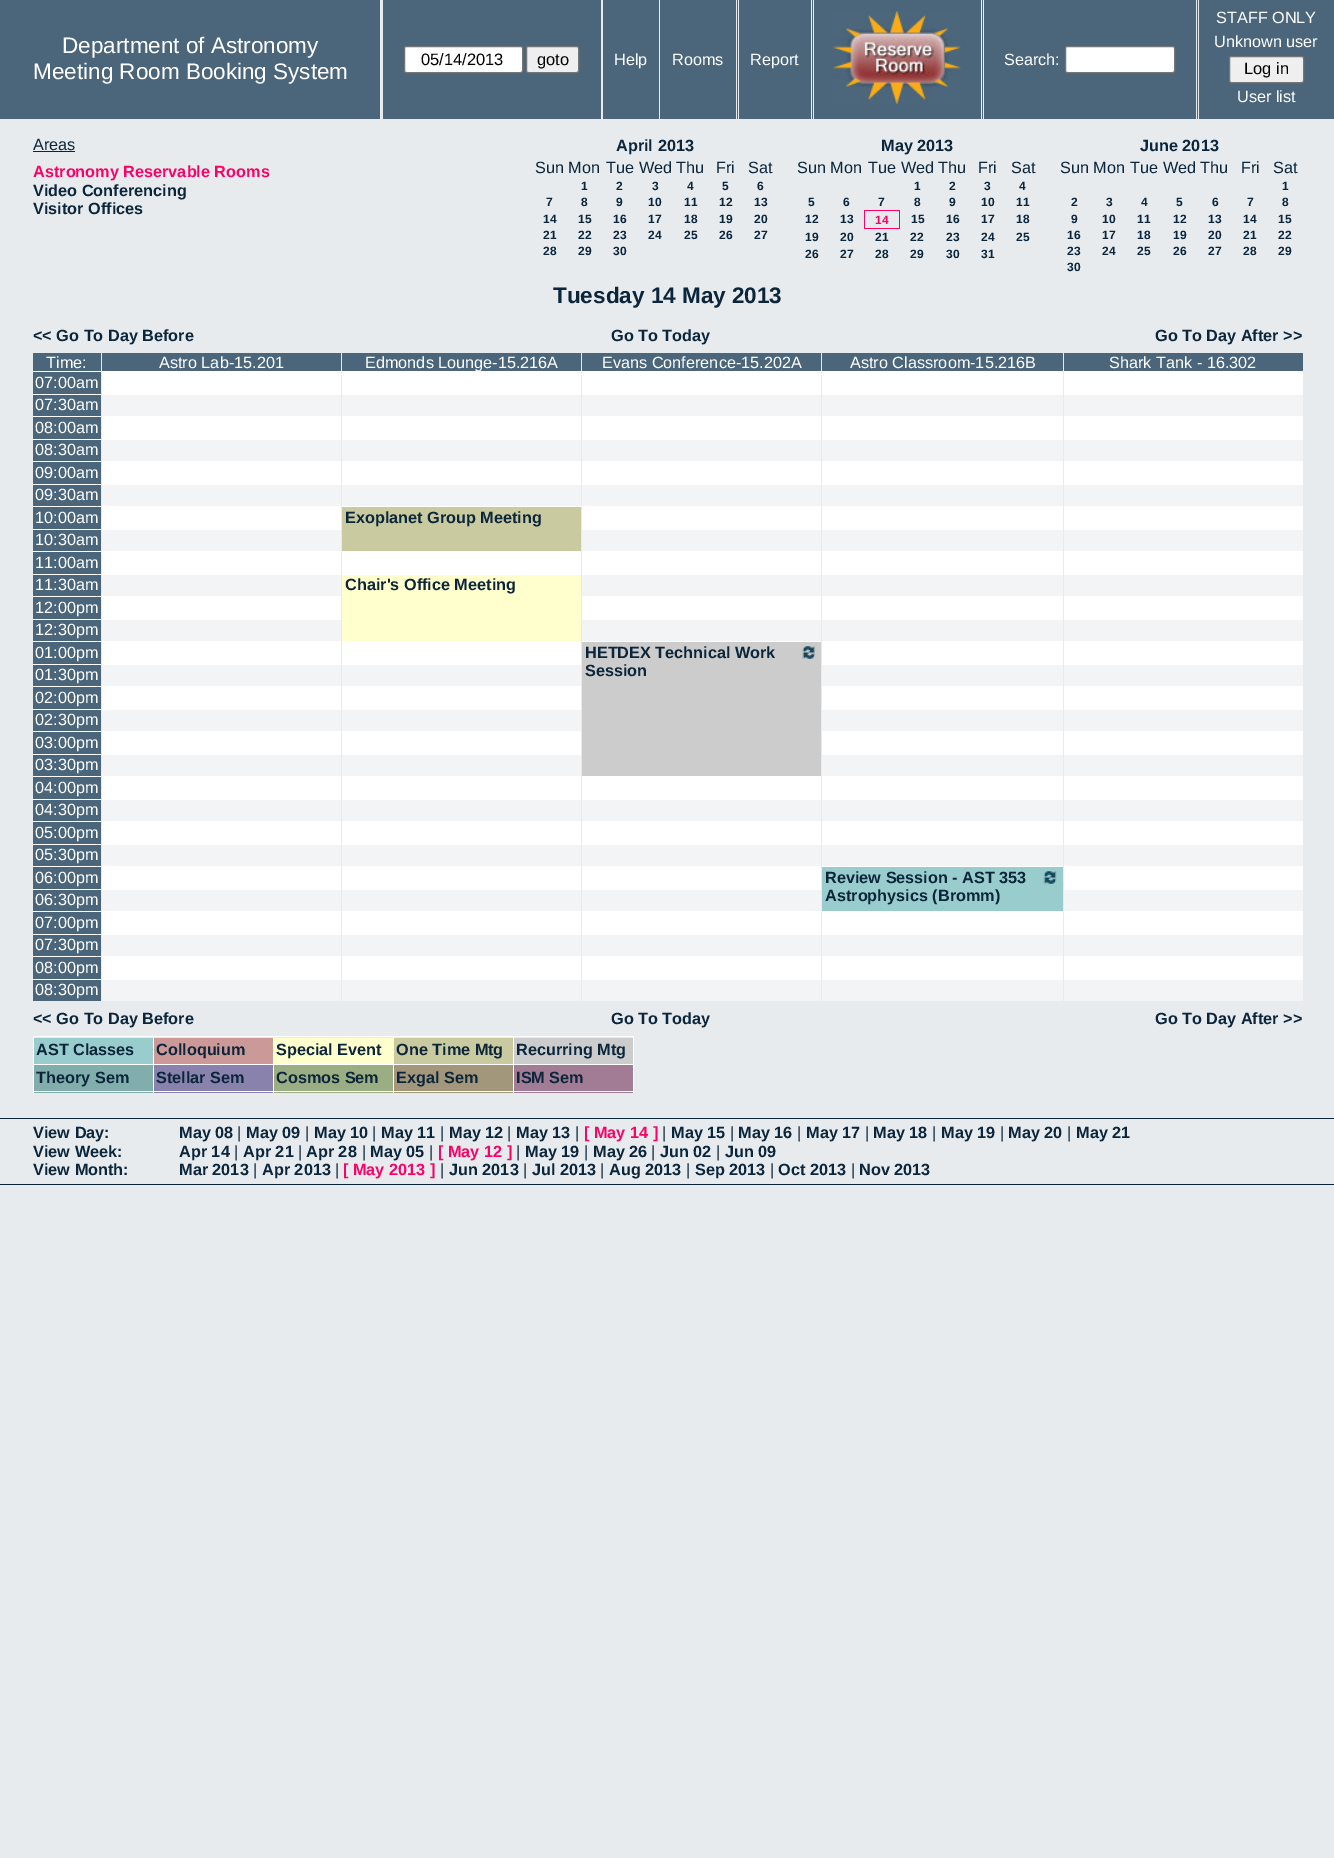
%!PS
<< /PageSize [1334 1858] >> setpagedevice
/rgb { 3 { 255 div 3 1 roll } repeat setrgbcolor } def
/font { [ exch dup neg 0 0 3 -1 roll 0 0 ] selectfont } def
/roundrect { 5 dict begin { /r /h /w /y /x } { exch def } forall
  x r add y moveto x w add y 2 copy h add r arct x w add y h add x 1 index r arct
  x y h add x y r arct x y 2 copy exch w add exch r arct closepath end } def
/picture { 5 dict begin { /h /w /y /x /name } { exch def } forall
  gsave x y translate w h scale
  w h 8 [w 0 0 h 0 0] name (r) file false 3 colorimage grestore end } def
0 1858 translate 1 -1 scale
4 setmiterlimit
231 235 238 rgb
0 0 1334 1858 rectfill
75 102 123 rgb
0 0 380 119 rectfill
383 0 218 119 rectfill
255 255 255 rgb
404.5 46.5 118 26 2 roundrect gsave fill grestore
118 118 118 rgb
stroke
239 239 239 rgb
526.5 46.5 52 26 2 roundrect gsave fill grestore
118 118 118 rgb
stroke
[
  [603 0 56 119 75 102 123]
  [660 0 78 119 75 102 123]
  [739 0 74 119 75 102 123]
  [736 0 1 120 231 235 238]
  [814 0 169 119 75 102 123]
  [811 0 1 120 231 235 238]
] { aload pop rgb rectfill } forall
(img/1.rgb) 832 11 129 93 picture
75 102 123 rgb
984 0 214 119 rectfill
231 235 238 rgb
981 0 1 120 rectfill
255 255 255 rgb
1065.5 46.5 109 26 2 roundrect gsave fill grestore
118 118 118 rgb
stroke
75 102 123 rgb
1199 0 135 119 rectfill
231 235 238 rgb
1196 0 1 120 rectfill
239 239 239 rgb
1229.5 56.5 74 26 2 roundrect gsave fill grestore
118 118 118 rgb
stroke
[
  [33 151 42 1 11 38 59]
  [864 210 36 1 255 0 102]
  [899 210 1 19 255 0 102]
  [864 228 36 1 255 0 102]
  [864 210 1 19 255 0 102]
  [33 353 68 18 75 102 123]
  [102 353 239 18 75 102 123]
  [342 353 239 18 75 102 123]
  [582 353 239 18 75 102 123]
  [822 353 241 18 75 102 123]
  [1064 353 239 18 75 102 123]
  [33 372 68 22 75 102 123]
  [33 371 68 1 255 255 255]
  [102 371 239 23 255 255 255]
  [342 371 239 23 255 255 255]
  [582 371 239 23 255 255 255]
  [822 371 241 23 255 255 255]
  [1064 371 239 23 255 255 255]
  [33 395 68 21 75 102 123]
  [33 394 1270 1 255 255 255]
  [102 395 239 21 242 244 246]
  [101 394 1 1 231 235 238]
  [342 395 239 21 242 244 246]
  [341 394 1 1 231 235 238]
  [582 395 239 21 242 244 246]
  [581 394 1 1 231 235 238]
  [822 395 241 21 242 244 246]
  [821 394 1 1 231 235 238]
  [1064 395 239 21 242 244 246]
  [1063 394 1 1 231 235 238]
  [33 417 68 22 75 102 123]
  [33 416 68 1 255 255 255]
  [102 416 239 23 255 255 255]
  [342 416 239 23 255 255 255]
  [582 416 239 23 255 255 255]
  [822 416 241 23 255 255 255]
  [1064 416 239 23 255 255 255]
  [33 440 68 21 75 102 123]
  [33 439 1270 1 255 255 255]
  [102 440 239 21 242 244 246]
  [101 439 1 1 231 235 238]
  [342 440 239 21 242 244 246]
  [341 439 1 1 231 235 238]
  [582 440 239 21 242 244 246]
  [581 439 1 1 231 235 238]
  [822 440 241 21 242 244 246]
  [821 439 1 1 231 235 238]
  [1064 440 239 21 242 244 246]
  [1063 439 1 1 231 235 238]
  [33 462 68 22 75 102 123]
  [33 461 68 1 255 255 255]
  [102 461 239 23 255 255 255]
  [342 461 239 23 255 255 255]
  [582 461 239 23 255 255 255]
  [822 461 241 23 255 255 255]
  [1064 461 239 23 255 255 255]
  [33 485 68 21 75 102 123]
  [33 484 1270 1 255 255 255]
  [102 485 239 21 242 244 246]
  [101 484 1 1 231 235 238]
  [342 485 239 21 242 244 246]
  [341 484 1 1 231 235 238]
  [582 485 239 21 242 244 246]
  [581 484 1 1 231 235 238]
  [822 485 241 21 242 244 246]
  [821 484 1 1 231 235 238]
  [1064 485 239 21 242 244 246]
  [1063 484 1 1 231 235 238]
  [33 507 68 22 75 102 123]
  [33 506 68 1 255 255 255]
  [102 506 239 23 255 255 255]
  [342 507 239 44 201 202 160]
  [341 506 240 1 255 255 255]
  [341 506 1 1 231 235 238]
  [582 506 239 23 255 255 255]
  [822 506 241 23 255 255 255]
  [1064 506 239 23 255 255 255]
  [102 530 239 21 242 244 246]
  [33 529 308 1 255 255 255]
  [101 529 1 1 231 235 238]
  [582 530 239 21 242 244 246]
  [581 529 722 1 255 255 255]
  [581 529 1 1 231 235 238]
  [33 530 68 21 75 102 123]
  [822 530 241 21 242 244 246]
  [821 529 1 1 231 235 238]
  [1064 530 239 21 242 244 246]
  [1063 529 1 1 231 235 238]
  [33 552 68 22 75 102 123]
  [33 551 68 1 255 255 255]
  [102 551 239 23 255 255 255]
  [342 551 239 23 255 255 255]
  [582 551 239 23 255 255 255]
  [822 551 241 23 255 255 255]
  [1064 551 239 23 255 255 255]
  [33 575 68 21 75 102 123]
  [33 574 1270 1 255 255 255]
  [102 575 239 21 242 244 246]
  [101 574 1 1 231 235 238]
  [342 575 239 66 255 255 205]
  [341 574 1 1 231 235 238]
  [582 575 239 21 242 244 246]
  [581 574 1 1 231 235 238]
  [822 575 241 21 242 244 246]
  [821 574 1 1 231 235 238]
  [1064 575 239 21 242 244 246]
  [1063 574 1 1 231 235 238]
  [33 597 68 22 75 102 123]
  [33 596 68 1 255 255 255]
  [102 596 239 23 255 255 255]
  [582 596 239 23 255 255 255]
  [822 596 241 23 255 255 255]
  [1064 596 239 23 255 255 255]
  [102 620 239 21 242 244 246]
  [33 619 308 1 255 255 255]
  [101 619 1 1 231 235 238]
  [582 620 239 21 242 244 246]
  [581 619 722 1 255 255 255]
  [581 619 1 1 231 235 238]
  [33 620 68 21 75 102 123]
  [822 620 241 21 242 244 246]
  [821 619 1 1 231 235 238]
  [1064 620 239 21 242 244 246]
  [1063 619 1 1 231 235 238]
  [33 642 68 22 75 102 123]
  [33 641 68 1 255 255 255]
  [102 641 239 23 255 255 255]
  [342 641 239 23 255 255 255]
  [582 642 239 134 204 204 204]
  [581 641 240 1 255 255 255]
  [581 641 1 1 231 235 238]
] { aload pop rgb rectfill } forall
(img/2.rgb) 802 646 13 13 picture
[
  [822 641 241 23 255 255 255]
  [1064 641 239 23 255 255 255]
  [102 665 239 21 242 244 246]
  [33 664 548 1 255 255 255]
  [101 664 1 1 231 235 238]
  [342 665 239 21 242 244 246]
  [341 664 1 1 231 235 238]
  [822 665 241 21 242 244 246]
  [821 664 482 1 255 255 255]
  [821 664 1 1 231 235 238]
  [33 665 68 21 75 102 123]
  [1064 665 239 21 242 244 246]
  [1063 664 1 1 231 235 238]
  [33 687 68 22 75 102 123]
  [33 686 68 1 255 255 255]
  [102 686 239 23 255 255 255]
  [342 686 239 23 255 255 255]
  [822 686 241 23 255 255 255]
  [1064 686 239 23 255 255 255]
  [102 710 239 21 242 244 246]
  [33 709 548 1 255 255 255]
  [101 709 1 1 231 235 238]
  [342 710 239 21 242 244 246]
  [341 709 1 1 231 235 238]
  [822 710 241 21 242 244 246]
  [821 709 482 1 255 255 255]
  [821 709 1 1 231 235 238]
  [33 710 68 21 75 102 123]
  [1064 710 239 21 242 244 246]
  [1063 709 1 1 231 235 238]
  [33 732 68 22 75 102 123]
  [33 731 68 1 255 255 255]
  [102 731 239 23 255 255 255]
  [342 731 239 23 255 255 255]
  [822 731 241 23 255 255 255]
  [1064 731 239 23 255 255 255]
  [102 755 239 21 242 244 246]
  [33 754 548 1 255 255 255]
  [101 754 1 1 231 235 238]
  [342 755 239 21 242 244 246]
  [341 754 1 1 231 235 238]
  [822 755 241 21 242 244 246]
  [821 754 482 1 255 255 255]
  [821 754 1 1 231 235 238]
  [33 755 68 21 75 102 123]
  [1064 755 239 21 242 244 246]
  [1063 754 1 1 231 235 238]
  [33 777 68 22 75 102 123]
  [33 776 68 1 255 255 255]
  [102 776 239 23 255 255 255]
  [342 776 239 23 255 255 255]
  [582 776 239 23 255 255 255]
  [822 776 241 23 255 255 255]
  [1064 776 239 23 255 255 255]
  [33 800 68 21 75 102 123]
  [33 799 1270 1 255 255 255]
  [102 800 239 21 242 244 246]
  [101 799 1 1 231 235 238]
  [342 800 239 21 242 244 246]
  [341 799 1 1 231 235 238]
  [582 800 239 21 242 244 246]
  [581 799 1 1 231 235 238]
  [822 800 241 21 242 244 246]
  [821 799 1 1 231 235 238]
  [1064 800 239 21 242 244 246]
  [1063 799 1 1 231 235 238]
  [33 822 68 22 75 102 123]
  [33 821 68 1 255 255 255]
  [102 821 239 23 255 255 255]
  [342 821 239 23 255 255 255]
  [582 821 239 23 255 255 255]
  [822 821 241 23 255 255 255]
  [1064 821 239 23 255 255 255]
  [33 845 68 21 75 102 123]
  [33 844 1270 1 255 255 255]
  [102 845 239 21 242 244 246]
  [101 844 1 1 231 235 238]
  [342 845 239 21 242 244 246]
  [341 844 1 1 231 235 238]
  [582 845 239 21 242 244 246]
  [581 844 1 1 231 235 238]
  [822 845 241 21 242 244 246]
  [821 844 1 1 231 235 238]
  [1064 845 239 21 242 244 246]
  [1063 844 1 1 231 235 238]
  [33 867 68 22 75 102 123]
  [33 866 68 1 255 255 255]
  [102 866 239 23 255 255 255]
  [342 866 239 23 255 255 255]
  [582 866 239 23 255 255 255]
  [822 867 241 44 153 204 204]
  [821 866 242 1 255 255 255]
  [821 866 1 1 231 235 238]
] { aload pop rgb rectfill } forall
(img/3.rgb) 1043 871 14 13 picture
[
  [1064 866 239 23 255 255 255]
  [33 890 68 21 75 102 123]
  [33 889 788 1 255 255 255]
  [102 890 239 21 242 244 246]
  [101 889 1 1 231 235 238]
  [342 890 239 21 242 244 246]
  [341 889 1 1 231 235 238]
  [582 890 239 21 242 244 246]
  [581 889 1 1 231 235 238]
  [1064 890 239 21 242 244 246]
  [1063 889 240 1 255 255 255]
  [1063 889 1 1 231 235 238]
  [33 912 68 22 75 102 123]
  [33 911 68 1 255 255 255]
  [102 911 239 23 255 255 255]
  [342 911 239 23 255 255 255]
  [582 911 239 23 255 255 255]
  [822 911 241 23 255 255 255]
  [1064 911 239 23 255 255 255]
  [33 935 68 21 75 102 123]
  [33 934 1270 1 255 255 255]
  [102 935 239 21 242 244 246]
  [101 934 1 1 231 235 238]
  [342 935 239 21 242 244 246]
  [341 934 1 1 231 235 238]
  [582 935 239 21 242 244 246]
  [581 934 1 1 231 235 238]
  [822 935 241 21 242 244 246]
  [821 934 1 1 231 235 238]
  [1064 935 239 21 242 244 246]
  [1063 934 1 1 231 235 238]
  [33 957 68 22 75 102 123]
  [33 956 68 1 255 255 255]
  [102 956 239 23 255 255 255]
  [342 956 239 23 255 255 255]
  [582 956 239 23 255 255 255]
  [822 956 241 23 255 255 255]
  [1064 956 239 23 255 255 255]
  [33 980 68 21 75 102 123]
  [33 979 1270 1 255 255 255]
  [102 980 239 21 242 244 246]
  [101 979 1 1 231 235 238]
  [342 980 239 21 242 244 246]
  [341 979 1 1 231 235 238]
  [582 980 239 21 242 244 246]
  [581 979 1 1 231 235 238]
  [822 980 241 21 242 244 246]
  [821 979 1 1 231 235 238]
  [1064 980 239 21 242 244 246]
  [1063 979 1 1 231 235 238]
  [34 1038 119 26 153 204 204]
  [513 1036 121 1 255 255 255]
  [513 1064 121 1 255 255 255]
  [514 1065 119 28 162 123 149]
  [633 1064 1 29 255 255 255]
  [513 1091 121 1 255 255 255]
  [513 1064 1 29 255 255 255]
  [393 1064 121 1 255 255 255]
  [513 1036 1 29 255 255 255]
  [393 1036 121 1 255 255 255]
  [394 1065 119 28 162 151 123]
  [393 1091 121 1 255 255 255]
  [393 1064 1 29 255 255 255]
  [273 1064 121 1 255 255 255]
  [393 1036 1 29 255 255 255]
  [273 1036 121 1 255 255 255]
  [274 1065 119 28 155 173 130]
  [273 1091 121 1 255 255 255]
  [273 1064 1 29 255 255 255]
  [153 1064 121 1 255 255 255]
  [273 1036 1 29 255 255 255]
  [153 1036 121 1 255 255 255]
  [154 1065 119 28 136 130 173]
  [153 1091 121 1 255 255 255]
  [153 1064 1 29 255 255 255]
  [33 1064 121 1 255 255 255]
  [153 1036 1 29 255 255 255]
  [33 1036 121 1 255 255 255]
  [34 1065 119 28 130 173 173]
  [33 1091 121 1 255 255 255]
  [33 1064 1 29 255 255 255]
  [33 1036 1 29 255 255 255]
  [154 1038 119 26 204 153 153]
  [274 1038 119 26 255 255 205]
  [394 1038 119 26 201 202 160]
  [514 1038 119 26 204 204 204]
  [633 1036 1 29 255 255 255]
  [0 1118 1334 1 11 38 59]
  [0 1184 1334 1 11 38 59]
] { aload pop rgb rectfill } forall
/LiberationSans-Regular 22.5 font
255 255 255 rgb
62 53 moveto (Department of Astronomy) show
33 79 moveto (Meeting Room Booking System) show
/LiberationSans-Regular 16.5 font
0 0 0 rgb
421 65 moveto (05/14/2013) show
537 65 moveto (goto) show
/LiberationSans-Regular 16.25 font
255 255 255 rgb
[
  [(Help) 614 65]
  [(Rooms) 672 65]
  [(Report) 750 65]
  [(Search:) 1004 65]
  [(STAFF ONLY) 1216 23]
  [(Unknown user) 1214 47]
] { aload pop moveto show } forall
/LiberationSans-Regular 16.5 font
0 0 0 rgb
1244 74 moveto (Log in) show
/LiberationSans-Regular 16.25 font
255 255 255 rgb
1237 102 moveto (User list) show
11 38 59 rgb
33 150 moveto (Areas) show
/LiberationSans-Bold 16.25 font
255 0 102 rgb
33 177 moveto (Astronomy Reservable Rooms) show
11 38 59 rgb
[
  [(Video Conferencing) 33 196]
  [(Visitor Offices) 33 214]
  [(April 2013) 616 151]
] { aload pop moveto show } forall
/LiberationSans-Regular 16.25 font
[
  [(Sun Mon) 535 173]
  [(Tue Wed Thu) 606 173]
  [(Fri) 716 173]
  [(Sat) 748 173]
] { aload pop moveto show } forall
/LiberationSans-Bold 12 font
[
  [(1) 581 190]
  [(2) 616 190]
  [(3) 652 190]
  [(4) 687 190]
  [(5) 722 190]
  [(6) 757 190]
  [(7) 546 206]
  [(8) 581 206]
  [(9) 616 206]
  [(10) 648 206]
  [(11) 684 206]
  [(12) 719 206]
  [(13) 754 206]
  [(14) 543 223]
  [(15) 578 223]
  [(16) 613 223]
  [(17) 648 223]
  [(18) 684 223]
  [(19) 719 223]
  [(20) 754 223]
  [(21) 543 239]
  [(22) 578 239]
  [(23) 613 239]
  [(24) 648 239]
  [(25) 684 239]
  [(26) 719 239]
  [(27) 754 239]
  [(28) 543 255]
  [(29) 578 255]
  [(30) 613 255]
] { aload pop moveto show } forall
/LiberationSans-Bold 16.25 font
881 151 moveto (May 2013) show
/LiberationSans-Regular 16.25 font
[
  [(Sun Mon) 797 173]
  [(Tue Wed Thu) 868 173]
  [(Fri) 978 173]
  [(Sat) 1011 173]
] { aload pop moveto show } forall
/LiberationSans-Bold 12 font
[
  [(1) 914 190]
  [(2) 949 190]
  [(3) 984 190]
  [(4) 1019 190]
  [(5) 808 206]
  [(6) 843 206]
  [(7) 878 206]
  [(8) 914 206]
  [(9) 949 206]
  [(10) 981 206]
  [(11) 1016 206]
  [(12) 805 223]
  [(13) 840 223]
] { aload pop moveto show } forall
255 0 102 rgb
875 224 moveto (14) show
11 38 59 rgb
[
  [(15) 911 223]
  [(16) 946 223]
  [(17) 981 223]
  [(18) 1016 223]
  [(19) 805 241]
  [(20) 840 241]
  [(21) 875 241]
  [(22) 910 241]
  [(23) 946 241]
  [(24) 981 241]
  [(25) 1016 241]
  [(26) 805 258]
  [(27) 840 258]
  [(28) 875 258]
  [(29) 910 258]
  [(30) 946 258]
  [(31) 981 258]
] { aload pop moveto show } forall
/LiberationSans-Bold 16.25 font
1140 151 moveto (June 2013) show
/LiberationSans-Regular 16.25 font
[
  [(Sun Mon) 1060 173]
  [(Tue Wed Thu) 1130 173]
  [(Fri) 1241 173]
  [(Sat) 1273 173]
] { aload pop moveto show } forall
/LiberationSans-Bold 12 font
[
  [(1) 1282 190]
  [(2) 1071 206]
  [(3) 1106 206]
  [(4) 1141 206]
  [(5) 1176 206]
  [(6) 1212 206]
  [(7) 1247 206]
  [(8) 1282 206]
  [(9) 1071 223]
  [(10) 1102 223]
  [(11) 1137 223]
  [(12) 1173 223]
  [(13) 1208 223]
  [(14) 1243 223]
  [(15) 1278 223]
  [(16) 1067 239]
  [(17) 1102 239]
  [(18) 1137 239]
  [(19) 1173 239]
  [(20) 1208 239]
  [(21) 1243 239]
  [(22) 1278 239]
  [(23) 1067 255]
  [(24) 1102 255]
  [(25) 1137 255]
  [(26) 1173 255]
  [(27) 1208 255]
  [(28) 1243 255]
  [(29) 1278 255]
  [(30) 1067 271]
] { aload pop moveto show } forall
/LiberationSans-Bold 22.5 font
553 303 moveto (Tuesday 14 May 2013) show
/LiberationSans-Bold 16.25 font
[
  [(<< Go To Day Before) 33 341]
  [(Go To Today) 611 341]
  [(Go To Day After >>) 1155 341]
] { aload pop moveto show } forall
/LiberationSans-Regular 16.25 font
255 255 255 rgb
[
  [(Time:) 46 368]
  [(Astro Lab-15.201) 159 368]
  [(Edmonds Lounge-15.216A) 365 368]
  [(Evans Conference-15.202A) 602 368]
  [(Astro Classroom-15.216B) 850 368]
  [(Shark Tank - 16.302) 1109 368]
  [(07:00am) 35 388]
  [(07:30am) 35 410]
  [(08:00am) 35 433]
  [(08:30am) 35 455]
  [(09:00am) 35 478]
  [(09:30am) 35 500]
  [(10:00am) 35 523]
] { aload pop moveto show } forall
/LiberationSans-Bold 16.25 font
11 38 59 rgb
345 523 moveto (Exoplanet Group Meeting) show
/LiberationSans-Regular 16.25 font
255 255 255 rgb
[
  [(10:30am) 35 545]
  [(11:00am) 35 568]
  [(11:30am) 35 590]
] { aload pop moveto show } forall
/LiberationSans-Bold 16.25 font
11 38 59 rgb
345 590 moveto (Chair's Office Meeting) show
/LiberationSans-Regular 16.25 font
255 255 255 rgb
[
  [(12:00pm) 35 613]
  [(12:30pm) 35 635]
  [(01:00pm) 35 658]
] { aload pop moveto show } forall
/LiberationSans-Bold 16.25 font
11 38 59 rgb
585 658 moveto (HETDEX Technical Work) show
585 676 moveto (Session) show
/LiberationSans-Regular 16.25 font
255 255 255 rgb
[
  [(01:30pm) 35 680]
  [(02:00pm) 35 703]
  [(02:30pm) 35 725]
  [(03:00pm) 35 748]
  [(03:30pm) 35 770]
  [(04:00pm) 35 793]
  [(04:30pm) 35 815]
  [(05:00pm) 35 838]
  [(05:30pm) 35 860]
  [(06:00pm) 35 883]
] { aload pop moveto show } forall
/LiberationSans-Bold 16.25 font
11 38 59 rgb
825 883 moveto (Review Session - AST 353) show
825 901 moveto (Astrophysics \(Bromm\)) show
/LiberationSans-Regular 16.25 font
255 255 255 rgb
[
  [(06:30pm) 35 905]
  [(07:00pm) 35 928]
  [(07:30pm) 35 950]
  [(08:00pm) 35 973]
  [(08:30pm) 35 995]
] { aload pop moveto show } forall
/LiberationSans-Bold 16.25 font
11 38 59 rgb
[
  [(<< Go To Day Before) 33 1024]
  [(Go To Today) 611 1024]
  [(Go To Day After >>) 1155 1024]
  [(AST Classes) 36 1055]
  [(Colloquium) 156 1055]
  [(Special Event) 276 1055]
  [(One Time Mtg) 396 1055]
  [(Recurring Mtg) 516 1055]
  [(Theory Sem) 36 1083]
  [(Stellar Sem) 156 1083]
  [(Cosmos Sem) 276 1083]
  [(Exgal Sem) 396 1083]
  [(ISM Sem) 516 1083]
  [(View Day:) 33 1138]
  [(May 08) 179 1138]
] { aload pop moveto show } forall
/LiberationSans-Regular 16.25 font
237 1138 moveto (|) show
/LiberationSans-Bold 16.25 font
246 1138 moveto (May 09) show
/LiberationSans-Regular 16.25 font
305 1138 moveto (|) show
/LiberationSans-Bold 16.25 font
314 1138 moveto (May 10) show
/LiberationSans-Regular 16.25 font
372 1138 moveto (|) show
/LiberationSans-Bold 16.25 font
381 1138 moveto (May 11) show
/LiberationSans-Regular 16.25 font
440 1138 moveto (|) show
/LiberationSans-Bold 16.25 font
449 1138 moveto (May 12) show
/LiberationSans-Regular 16.25 font
507 1138 moveto (|) show
/LiberationSans-Bold 16.25 font
516 1138 moveto (May 13) show
/LiberationSans-Regular 16.25 font
575 1138 moveto (|) show
/LiberationSans-Bold 16.25 font
255 0 102 rgb
584 1138 moveto ([ May 14 ]) show
/LiberationSans-Regular 16.25 font
11 38 59 rgb
662 1138 moveto (|) show
/LiberationSans-Bold 16.25 font
671 1138 moveto (May 15) show
/LiberationSans-Regular 16.25 font
730 1138 moveto (|) show
/LiberationSans-Bold 16.25 font
738 1138 moveto (May 16) show
/LiberationSans-Regular 16.25 font
797 1138 moveto (|) show
/LiberationSans-Bold 16.25 font
806 1138 moveto (May 17) show
/LiberationSans-Regular 16.25 font
865 1138 moveto (|) show
/LiberationSans-Bold 16.25 font
873 1138 moveto (May 18) show
/LiberationSans-Regular 16.25 font
932 1138 moveto (|) show
/LiberationSans-Bold 16.25 font
941 1138 moveto (May 19) show
/LiberationSans-Regular 16.25 font
1000 1138 moveto (|) show
/LiberationSans-Bold 16.25 font
1008 1138 moveto (May 20) show
/LiberationSans-Regular 16.25 font
1067 1138 moveto (|) show
/LiberationSans-Bold 16.25 font
[
  [(May 21) 1076 1138]
  [(View Week:) 33 1157]
  [(Apr 14) 179 1157]
] { aload pop moveto show } forall
/LiberationSans-Regular 16.25 font
234 1157 moveto (|) show
/LiberationSans-Bold 16.25 font
243 1157 moveto (Apr 21) show
/LiberationSans-Regular 16.25 font
298 1157 moveto (|) show
/LiberationSans-Bold 16.25 font
306 1157 moveto (Apr 28) show
/LiberationSans-Regular 16.25 font
362 1157 moveto (|) show
/LiberationSans-Bold 16.25 font
370 1157 moveto (May 05) show
/LiberationSans-Regular 16.25 font
429 1157 moveto (|) show
/LiberationSans-Bold 16.25 font
255 0 102 rgb
438 1157 moveto ([ May 12 ]) show
/LiberationSans-Regular 16.25 font
11 38 59 rgb
516 1157 moveto (|) show
/LiberationSans-Bold 16.25 font
525 1157 moveto (May 19) show
/LiberationSans-Regular 16.25 font
584 1157 moveto (|) show
/LiberationSans-Bold 16.25 font
593 1157 moveto (May 26) show
/LiberationSans-Regular 16.25 font
651 1157 moveto (|) show
/LiberationSans-Bold 16.25 font
660 1157 moveto (Jun 02) show
/LiberationSans-Regular 16.25 font
716 1157 moveto (|) show
/LiberationSans-Bold 16.25 font
[
  [(Jun 09) 725 1157]
  [(View Month:) 33 1175]
  [(Mar 2013) 179 1175]
] { aload pop moveto show } forall
/LiberationSans-Regular 16.25 font
253 1175 moveto (|) show
/LiberationSans-Bold 16.25 font
262 1175 moveto (Apr 2013) show
/LiberationSans-Regular 16.25 font
335 1175 moveto (|) show
/LiberationSans-Bold 16.25 font
255 0 102 rgb
343 1175 moveto ([ May 2013 ]) show
/LiberationSans-Regular 16.25 font
11 38 59 rgb
440 1175 moveto (|) show
/LiberationSans-Bold 16.25 font
449 1175 moveto (Jun 2013) show
/LiberationSans-Regular 16.25 font
523 1175 moveto (|) show
/LiberationSans-Bold 16.25 font
532 1175 moveto (Jul 2013) show
/LiberationSans-Regular 16.25 font
600 1175 moveto (|) show
/LiberationSans-Bold 16.25 font
609 1175 moveto (Aug 2013) show
/LiberationSans-Regular 16.25 font
686 1175 moveto (|) show
/LiberationSans-Bold 16.25 font
695 1175 moveto (Sep 2013) show
/LiberationSans-Regular 16.25 font
770 1175 moveto (|) show
/LiberationSans-Bold 16.25 font
778 1175 moveto (Oct 2013) show
/LiberationSans-Regular 16.25 font
851 1175 moveto (|) show
/LiberationSans-Bold 16.25 font
859 1175 moveto (Nov 2013) show
showpage
